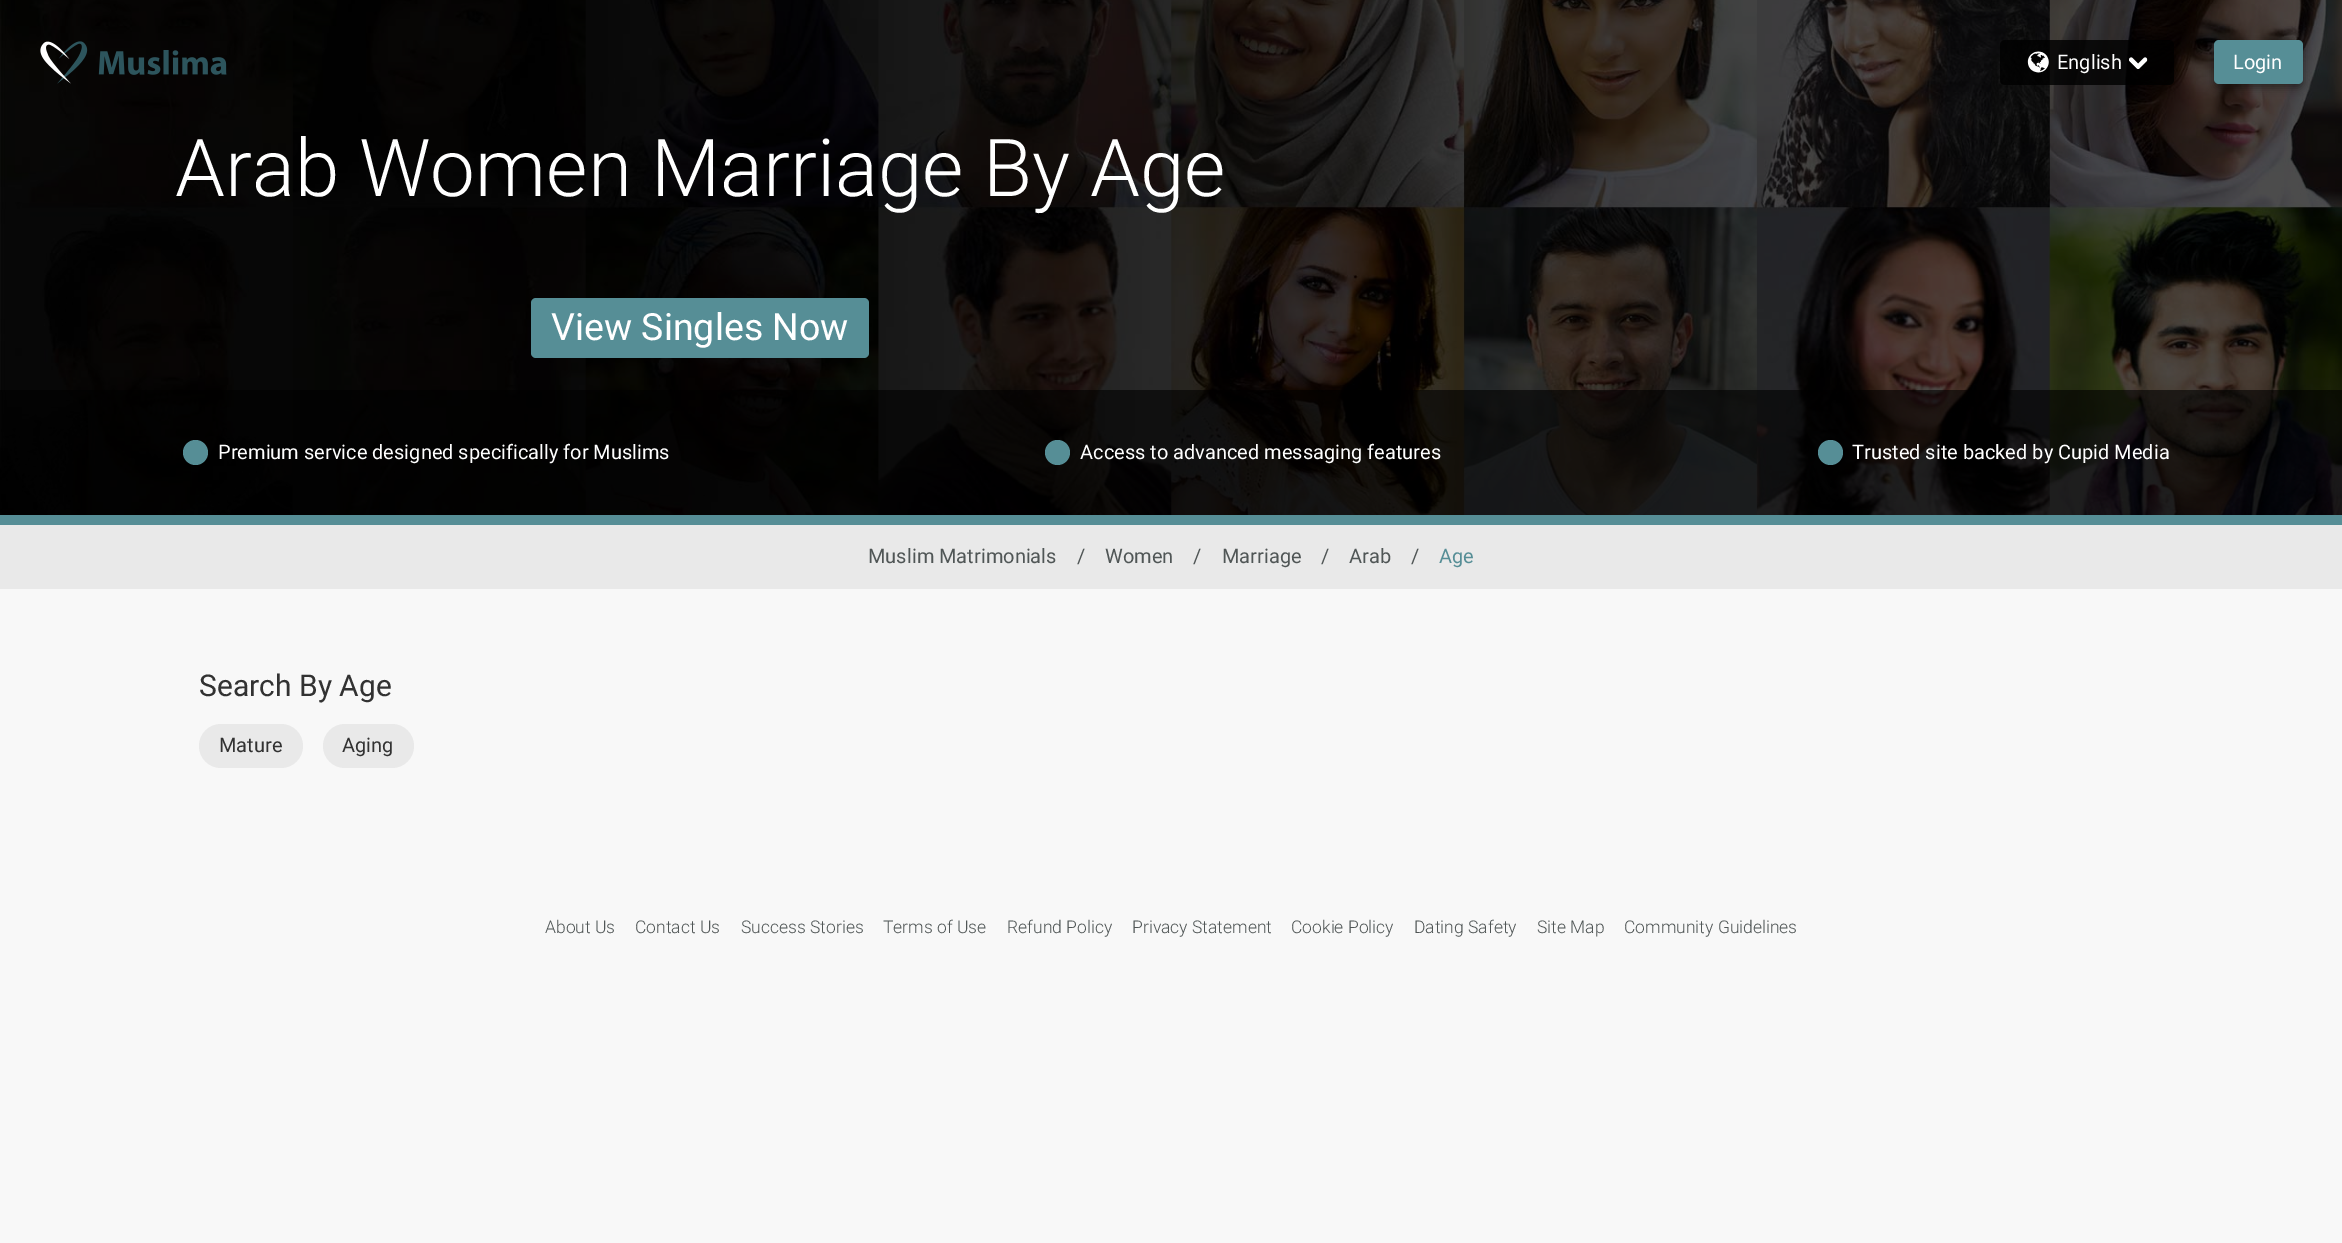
%!PS
<< /PageSize [2342 1243] /PageUsesTransparency true >> setpagedevice
/rgb { 3 { 255 div 3 1 roll } repeat setrgbcolor } def
/font { [ exch dup neg 0 0 3 -1 roll 0 0 ] selectfont } def
/alpha { dup .setfillconstantalpha .setstrokeconstantalpha } def
/circle { newpath 0 360 arc closepath } def
/roundrect { 5 dict begin { /r /h /w /y /x } { exch def } forall
  x r add y moveto x w add y 2 copy h add r arct x w add y h add x 1 index r arct
  x y h add x y r arct x y 2 copy exch w add exch r arct closepath end } def
/shadow { 12 dict begin { /a /b /q /h /w /y /x } { exch def } forall gsave /was 0 def
  9 -2 -9 { dup b mul 4 div /e exch def 1 sub .425 mul 2.718 exch exp 1 add a .99 .min exch div /now exch def
    1 1 now sub 1 was sub div sub alpha /was now def
    w h .min e 2 mul add 0 gt { x e sub y e sub w e 2 mul add h e 2 mul add
      q e add b .6 mul add w h .min 2 div e add .min 0 .max roundrect fill } if } for grestore end } def
/picture { 5 dict begin { /h /w /y /x /name } { exch def } forall
  gsave x y translate w h scale
  w h 8 [w 0 0 h 0 0] name (r) file false 3 colorimage grestore end } def
0 .pushpdf14devicefilter
0 1243 translate 1 -1 scale
4 setmiterlimit
248 248 248 rgb
0 0 2342 1243 rectfill
(img/5.rgb) 0 0 2342 515 picture
(img/1.rgb) 40 41 48 43 picture
(img/2.rgb) 98 50 129 25 picture
0.8 alpha
0 0 0 rgb
2000 40 174 45 5 roundrect fill
1 alpha
(img/3.rgb) 2027 51 22 22 picture
(img/4.rgb) 2129 57 19 12 picture
2214 44 89 44 5 4 0.4 shadow
86 142 150 rgb
2214 40 89 44 5 roundrect fill
531 298 338 60 5 roundrect fill
0.6 alpha
0 0 0 rgb
0 390 2342 125 rectfill
1 alpha
86 142 150 rgb
195.5 452.5 12.5 circle fill
1057.5 452.5 12.5 circle fill
1830.5 452.5 12.5 circle fill
0 515 2342 10 rectfill
233 233 233 rgb
0 525 2342 64 rectfill
199 724 104 44 22 roundrect fill
323 724 91 44 22 roundrect fill
/Roboto-Regular 20 font
255 255 255 rgb
2057 69 moveto (English) show
2233 69 moveto (Login) show
/Roboto-Light 80 font
175 196 moveto (Arab Women Marriage By Age) show
/Roboto-Regular 37.5 font
551 340 moveto (View Singles Now) show
/Roboto-Regular 20 font
[
  [(Premium service designed specifically for Muslims) 218 459]
  [(Access to advanced messaging features) 1080 459]
  [(Trusted site backed by Cupid Media) 1852 459]
] { aload pop moveto show } forall
80 86 86 rgb
[
  [(Muslim Matrimonials) 868 563]
  [(/) 1077 563]
  [(Women) 1105 563]
  [(/) 1193 563]
  [(Marriage) 1222 563]
  [(/) 1321 563]
  [(Arab) 1349 563]
  [(/) 1411 563]
] { aload pop moveto show } forall
86 142 150 rgb
1439 563 moveto (Age) show
/Roboto-Regular 30 font
50 50 50 rgb
199 696 moveto (Search By Age) show
/Roboto-Regular 20 font
219 752 moveto (Mature) show
342 752 moveto (Aging) show
/Roboto-Light 17.5 font
80 86 86 rgb
[
  [(About Us) 545 933]
  [(Contact Us) 635 933]
  [(Success Stories) 741 933]
  [(Terms of Use) 883 933]
  [(Refund Policy) 1007 933]
  [(Privacy Statement) 1132 933]
  [(Cookie Policy) 1291 933]
  [(Dating Safety) 1414 933]
  [(Site Map) 1537 933]
  [(Community Guidelines) 1624 933]
] { aload pop moveto show } forall
.poppdf14devicefilter showpage
